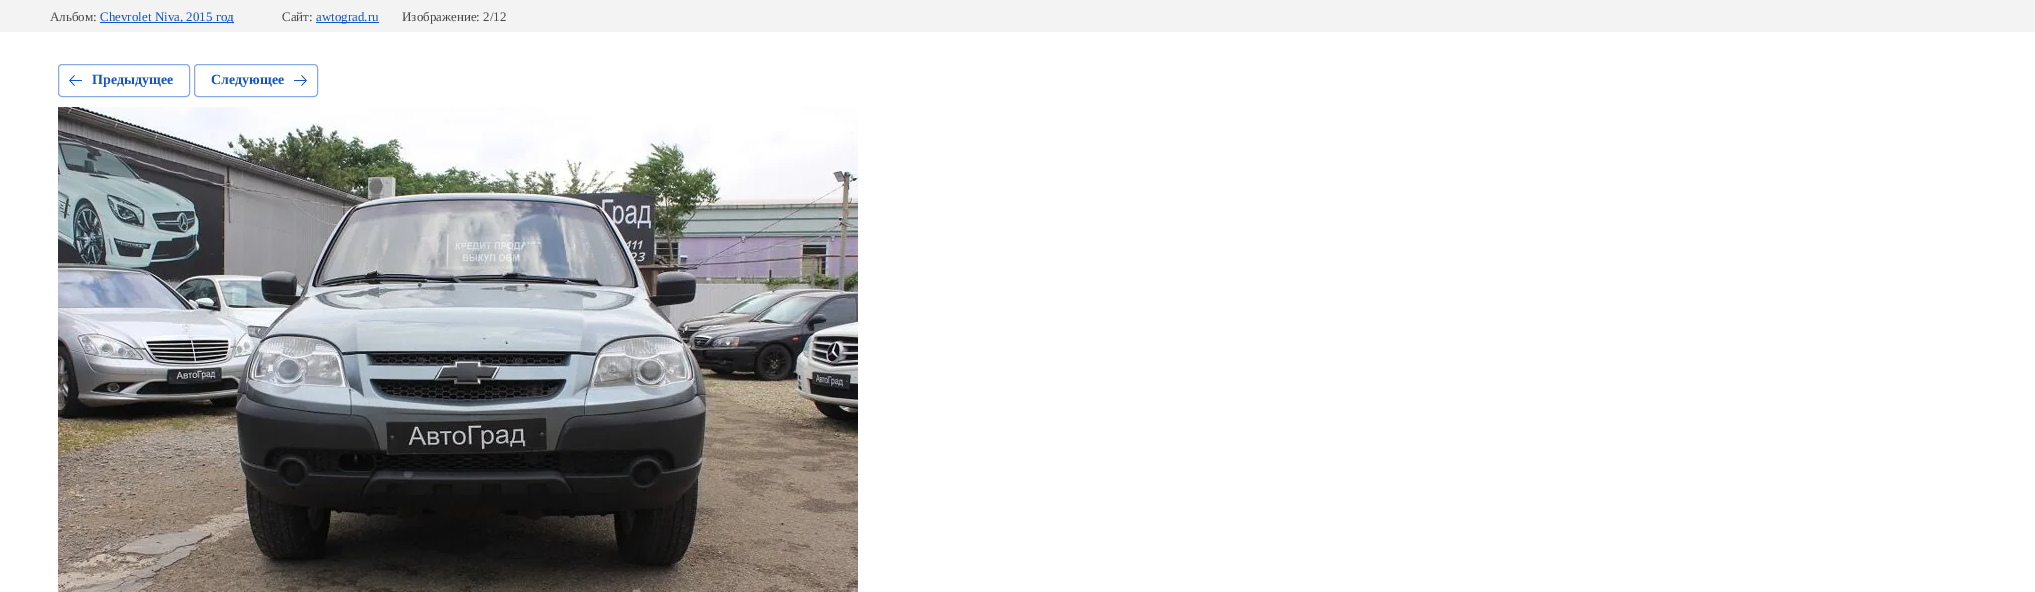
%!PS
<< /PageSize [2035 592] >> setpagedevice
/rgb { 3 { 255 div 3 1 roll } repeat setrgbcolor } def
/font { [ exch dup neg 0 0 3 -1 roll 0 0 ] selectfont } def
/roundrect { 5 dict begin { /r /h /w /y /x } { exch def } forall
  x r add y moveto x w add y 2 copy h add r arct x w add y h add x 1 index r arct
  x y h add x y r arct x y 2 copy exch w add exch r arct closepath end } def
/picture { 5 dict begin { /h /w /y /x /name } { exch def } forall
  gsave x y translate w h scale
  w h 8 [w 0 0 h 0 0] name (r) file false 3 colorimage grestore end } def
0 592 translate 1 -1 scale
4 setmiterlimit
255 255 255 rgb
0 0 2035 592 rectfill
[
  [0 0 2035 32 243 243 243]
  [100 22 134 1 17 85 204]
  [316 22 63 1 17 85 204]
] { aload pop rgb rectfill } forall
136 170 230 rgb
58.5 64.5 131 32 3.5 roundrect stroke
(img/1.rgb) 69 75 13 11 picture
194.5 64.5 123 32 3.5 roundrect stroke
(img/2.rgb) 294 75 13 11 picture
(img/3.rgb) 58 107 800 485 picture
/LiberationSerif-Regular 13 font
72 72 72 rgb
50 21 moveto (Альбом:) show
17 85 204 rgb
100 21 moveto (Chevrolet Niva, 2015 год) show
72 72 72 rgb
282 21 moveto (Сайт:) show
17 85 204 rgb
316 21 moveto (awtograd.ru) show
72 72 72 rgb
402 21 moveto (Изображение: 2/12) show
/LiberationSerif-Bold 14 font
17 85 204 rgb
92 84 moveto (Предыдущее) show
211 84 moveto (Следующее) show
showpage
